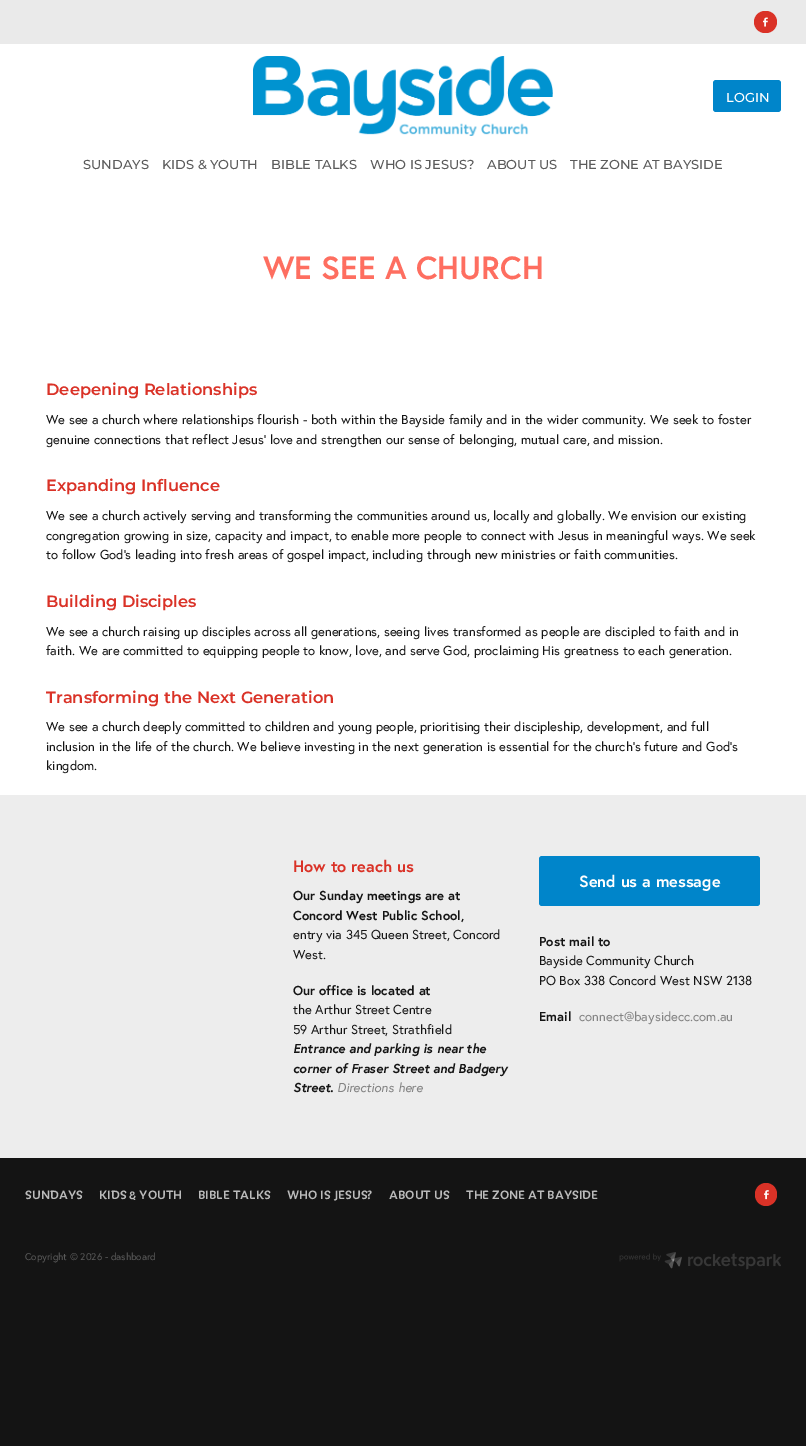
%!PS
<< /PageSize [806 1446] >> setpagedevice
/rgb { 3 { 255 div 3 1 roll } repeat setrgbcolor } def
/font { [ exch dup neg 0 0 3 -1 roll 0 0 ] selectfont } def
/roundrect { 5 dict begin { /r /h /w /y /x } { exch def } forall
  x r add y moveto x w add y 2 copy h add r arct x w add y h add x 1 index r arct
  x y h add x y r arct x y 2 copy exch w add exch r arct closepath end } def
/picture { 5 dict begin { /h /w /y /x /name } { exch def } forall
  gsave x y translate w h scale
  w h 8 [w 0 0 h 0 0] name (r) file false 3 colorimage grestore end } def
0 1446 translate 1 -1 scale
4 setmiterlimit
255 255 255 rgb
0 0 806 1446 rectfill
234 234 234 rgb
0 0 806 44 rectfill
218 50 39 rgb
754 11 23 22 11 roundrect fill
(img/1.rgb) 763 17 5 10 picture
(img/2.rgb) 253 56 300 80 picture
0 133 202 rgb
713 80 68 32 3 roundrect fill
237 237 237 rgb
0 795 806 363 rectfill
0 133 202 rgb
539 856 221 50 3 roundrect fill
20 20 20 rgb
0 1158 806 135 rectfill
218 50 39 rgb
755 1183 22 23 11 roundrect fill
(img/3.rgb) 764 1190 5 10 picture
20 20 20 rgb
-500 1231 moveto -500 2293 lineto 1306 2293 lineto 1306 1231 lineto 806 1231 lineto 806 1293 lineto 0 1293 lineto 0 1231 lineto closepath fill
(img/4.rgb) 619 1252 162 18 picture
/Montserrat-Medium 13 font
255 255 255 rgb
726 102 moveto (LOGIN) show
91 91 91 rgb
[
  [(SUNDAYS) 83 169]
  [(KIDS & YOUTH) 162 169]
  [(BIBLE TALKS) 271 169]
  [(WHO IS JESUS?) 370 169]
  [(ABOUT US) 487 169]
  [(THE ZONE AT BAYSIDE) 570 169]
] { aload pop moveto show } forall
/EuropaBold-Bold 32 font
254 110 96 rgb
263 279 moveto (WE SEE A CHURCH) show
/Montserrat-SemiBold 16.25 font
218 50 39 rgb
46 395 moveto (Deepening Relationships) show
/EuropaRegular-Regular 13 font
20 20 20 rgb
46 424 moveto (We see a church where relationships flourish - both within the Bayside family and in the wider community. We seek to foster) show
46 444 moveto (genuine connections that reflect Jesus’ love and strengthen our sense of belonging, mutual care, and mission.) show
/Montserrat-SemiBold 16.25 font
218 50 39 rgb
46 491 moveto (Expanding Influence) show
/EuropaRegular-Regular 13 font
20 20 20 rgb
[
  [(We see a church actively serving and transforming the communities around us, locally and globally. We envision our existing) 46 520]
  [(congregation growing in size, capacity and impact, to enable more people to connect with Jesus in meaningful ways. We seek) 46 540]
  [(to follow God’s leading into fresh areas of gospel impact, including through new ministries or faith communities.) 46 559]
] { aload pop moveto show } forall
/Montserrat-SemiBold 16.25 font
218 50 39 rgb
46 607 moveto (Building Disciples) show
/EuropaRegular-Regular 13 font
20 20 20 rgb
46 636 moveto (We see a church raising up disciples across all generations, seeing lives transformed as people are discipled to faith and in) show
46 655 moveto (faith. We are committed to equipping people to know, love, and serve God, proclaiming His greatness to each generation.) show
/Montserrat-SemiBold 16.25 font
218 50 39 rgb
46 703 moveto (Transforming the Next Generation) show
/EuropaRegular-Regular 13 font
20 20 20 rgb
[
  [(We see a church deeply committed to children and young people, prioritising their discipleship, development, and full) 46 731]
  [(inclusion in the life of the church. We believe investing in the next generation is essential for the church’s future and God’s) 46 751]
  [(kingdom.) 46 770]
] { aload pop moveto show } forall
/EuropaBold-Bold 16.25 font
218 50 39 rgb
293 872 moveto (How to reach us) show
/EuropaBold-Bold 13 font
20 20 20 rgb
293 900 moveto (Our Sunday meetings are at) show
293 920 moveto (Concord West Public School,) show
/EuropaRegular-Regular 13 font
293 939 moveto (entry via 345 Queen Street, Concord) show
293 959 moveto (West.) show
/EuropaBold-Bold 13 font
293 995 moveto (Our office is located at) show
/EuropaRegular-Regular 13 font
293 1014 moveto (the Arthur Street Centre) show
293 1034 moveto (59 Arthur Street, Strathfield) show
/EuropaBold-BoldItalic 13 font
[
  [(Entrance and parking is near the) 293 1053]
  [(corner of Fraser Street and Badgery) 293 1073]
  [(Street.) 293 1092]
] { aload pop moveto show } forall
/EuropaRegular-Italic 13 font
131 131 131 rgb
337 1092 moveto (Directions here) show
/EuropaBold-Bold 16.25 font
255 255 255 rgb
579 887 moveto (Send us a message) show
/EuropaBold-Bold 13 font
20 20 20 rgb
539 946 moveto (Post mail to) show
/EuropaRegular-Regular 13 font
539 965 moveto (Bayside Community Church) show
539 985 moveto (PO Box 338 Concord West NSW 2138) show
/EuropaBold-Bold 13 font
539 1021 moveto (Email) show
/EuropaRegular-Regular 13 font
131 131 131 rgb
579 1021 moveto (connect@baysidecc.com.au) show
/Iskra-Medium 13 font
187 187 187 rgb
[
  [(SUNDAYS) 25 1199]
  [(KIDS & YOUTH) 99 1199]
  [(BIBLE TALKS) 198 1199]
  [(WHO IS JESUS?) 287 1199]
  [(ABOUT US) 389 1199]
  [(THE ZONE AT BAYSIDE) 466 1199]
] { aload pop moveto show } forall
/EuropaRegular-Regular 9.75 font
91 91 91 rgb
25 1260 moveto (Copyright © 2026 - dashboard) show
showpage
